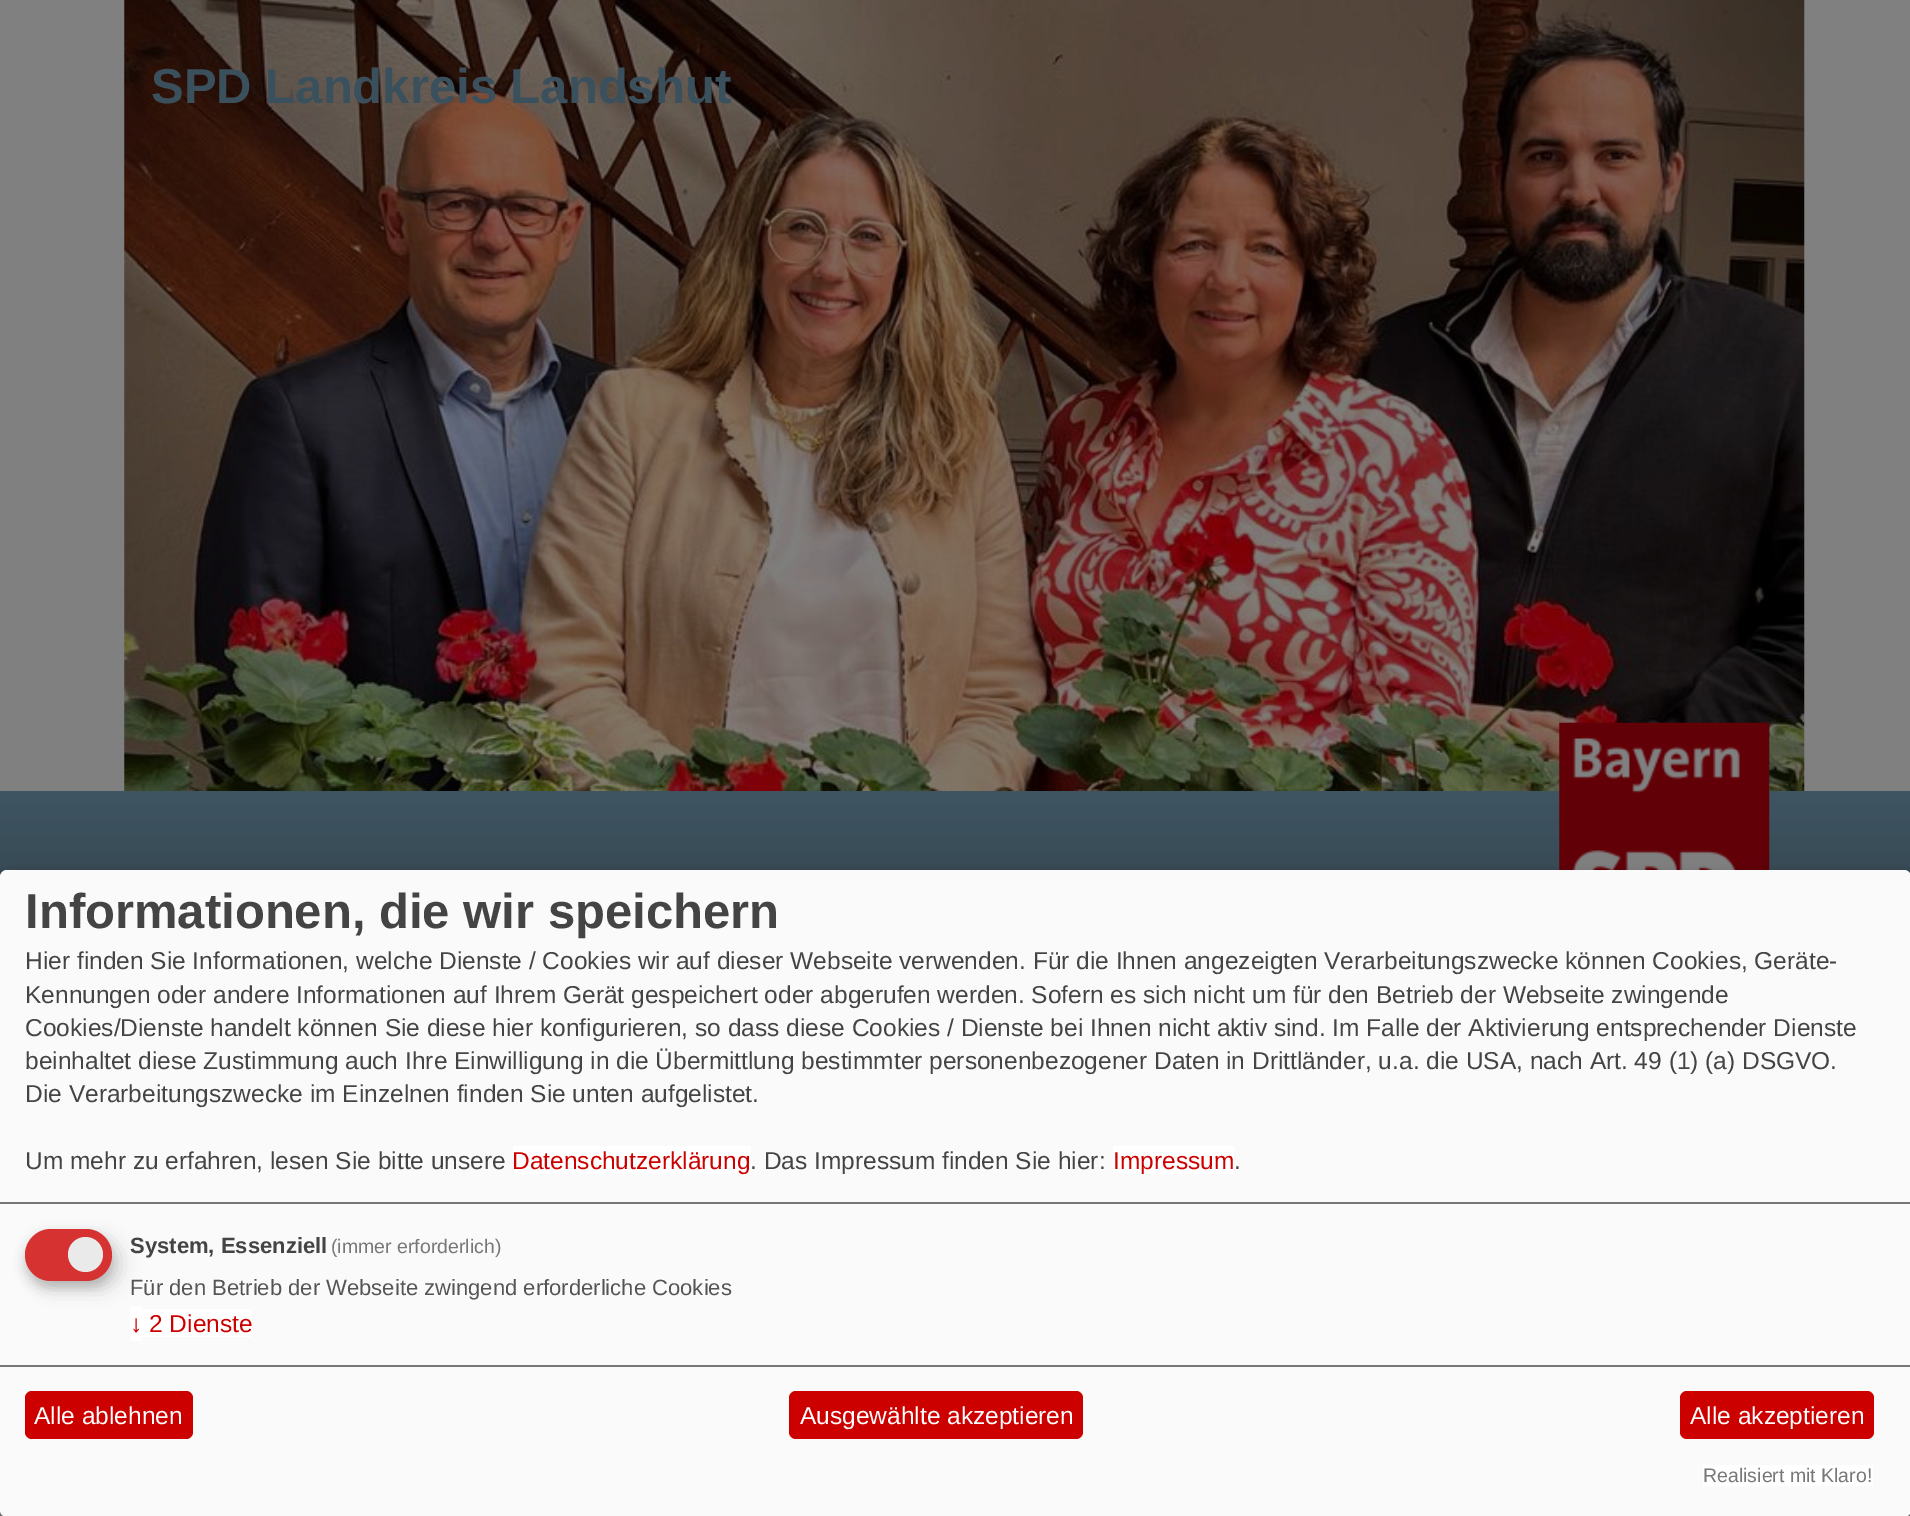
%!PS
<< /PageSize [1910 1516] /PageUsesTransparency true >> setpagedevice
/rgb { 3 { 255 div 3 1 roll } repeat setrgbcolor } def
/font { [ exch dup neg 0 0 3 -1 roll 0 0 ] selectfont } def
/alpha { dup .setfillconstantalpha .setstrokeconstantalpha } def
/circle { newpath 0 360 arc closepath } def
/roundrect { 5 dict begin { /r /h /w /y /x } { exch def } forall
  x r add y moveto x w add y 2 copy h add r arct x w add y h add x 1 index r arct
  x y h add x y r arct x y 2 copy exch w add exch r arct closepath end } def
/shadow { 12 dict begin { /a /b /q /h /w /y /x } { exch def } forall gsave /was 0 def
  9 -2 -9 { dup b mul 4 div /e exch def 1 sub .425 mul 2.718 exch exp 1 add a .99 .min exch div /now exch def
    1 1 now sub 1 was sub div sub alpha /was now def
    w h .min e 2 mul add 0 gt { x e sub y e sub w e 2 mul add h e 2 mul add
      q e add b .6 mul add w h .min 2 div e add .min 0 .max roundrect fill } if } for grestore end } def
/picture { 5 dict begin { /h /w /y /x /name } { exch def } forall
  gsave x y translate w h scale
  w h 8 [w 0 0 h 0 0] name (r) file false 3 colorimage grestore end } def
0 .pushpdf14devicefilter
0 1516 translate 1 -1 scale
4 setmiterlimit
128 128 128 rgb
0 0 1910 1516 rectfill
(img/1.rgb) 124 0 1681 791 picture
(img/2.rgb) 0 791 1910 86 picture
(img/3.rgb) 1559 722 211 148 picture
0 0 0 rgb
9 879 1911 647 7 9 0.19 shadow
0 877 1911 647 7 5 0.2 shadow
250 250 250 rgb
0 870 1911 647 7 roundrect fill
[
  [0 1202 1910 2 119 119 119]
  [513 1146 238 28 255 255 255]
  [1113 1146 121 28 255 255 255]
  [130 1306 12 35 255 255 255]
  [142 1309 110 28 255 255 255]
] { aload pop rgb rectfill } forall
0 0 0 rgb
33 1237 88 53 26.5 9 0.15 shadow
50 50 50 rgb
25 1236 87 52 26 5 0.2 shadow
214 50 50 rgb
25 1229 87 52 26 roundrect fill
234 234 234 rgb
85.5 1254.5 17.5 circle fill
119 119 119 rgb
0 1365 1910 2 rectfill
205 0 0 rgb
25 1391 168 48 7 roundrect fill
789 1391 294 48 7 roundrect fill
1680 1391 194 48 7 roundrect fill
255 255 255 rgb
1703 1465 170 21 rectfill
/LiberationSans-Bold 49 font
59 80 93 rgb
151 103 moveto (SPD Landkreis Landshut) show
68 68 68 rgb
25 928 moveto (Informationen, die wir speichern) show
/LiberationSans-Regular 24.5 font
[
  [(Hier finden Sie Informationen, welche Dienste / Cookies wir auf dieser Webseite verwenden. Für die Ihnen angezeigten Verarbeitungszwecke können Cookies, Geräte-) 25 969]
  [(Kennungen oder andere Informationen auf Ihrem Gerät gespeichert oder abgerufen werden. Sofern es sich nicht um für den Betrieb der Webseite zwingende) 25 1003]
  [(Cookies/Dienste handelt können Sie diese hier konfigurieren, so dass diese Cookies / Dienste bei Ihnen nicht aktiv sind. Im Falle der Aktivierung entsprechender Dienste) 25 1036]
  [(beinhaltet diese Zustimmung auch Ihre Einwilligung in die Übermittlung bestimmter personenbezogener Daten in Drittländer, u.a. die USA, nach Art. 49 \(1\) \(a\) DSGVO.) 25 1069]
  [(Die Verarbeitungszwecke im Einzelnen finden Sie unten aufgelistet.) 25 1102]
  [(Um mehr zu erfahren, lesen Sie bitte unsere) 25 1169]
] { aload pop moveto show } forall
205 0 0 rgb
512 1169 moveto (Datenschutzerklärung) show
68 68 68 rgb
750 1169 moveto (. Das Impressum finden Sie hier:) show
205 0 0 rgb
1113 1169 moveto (Impressum) show
68 68 68 rgb
1234 1169 moveto (.) show
/LiberationSans-Bold 22.05 font
130 1253 moveto (System, Essenziell) show
/LiberationSans-Regular 19.5 font
119 119 119 rgb
331 1253 moveto (\(immer erforderlich\)) show
/LiberationSans-Regular 22.05 font
85 85 85 rgb
130 1295 moveto (Für den Betrieb der Webseite zwingend erforderliche Cookies) show
/LiberationSans-Regular 24.5 font
205 0 0 rgb
130 1332 moveto (↓ 2 Dienste) show
255 255 255 rgb
[
  [(Alle ablehnen) 34 1424]
  [(Ausgewählte akzeptieren) 800 1424]
  [(Alle akzeptieren) 1690 1424]
] { aload pop moveto show } forall
/LiberationSans-Regular 19.5 font
119 119 119 rgb
1703 1482 moveto (Realisiert mit Klaro!) show
.poppdf14devicefilter showpage
